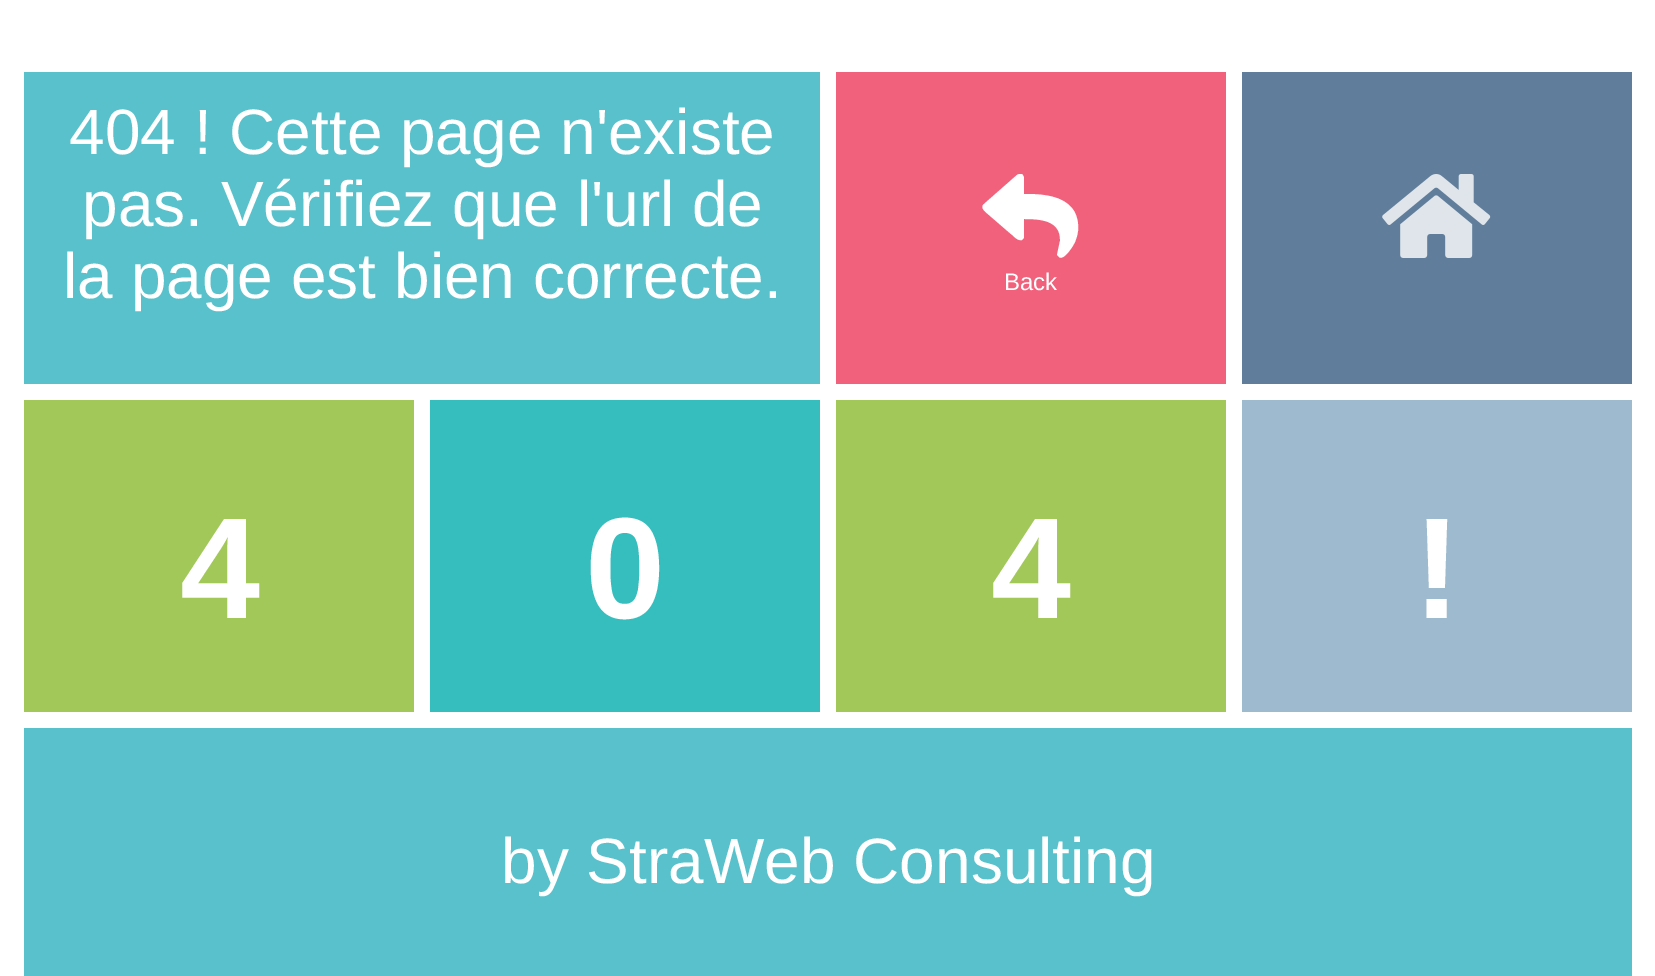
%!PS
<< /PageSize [1655 976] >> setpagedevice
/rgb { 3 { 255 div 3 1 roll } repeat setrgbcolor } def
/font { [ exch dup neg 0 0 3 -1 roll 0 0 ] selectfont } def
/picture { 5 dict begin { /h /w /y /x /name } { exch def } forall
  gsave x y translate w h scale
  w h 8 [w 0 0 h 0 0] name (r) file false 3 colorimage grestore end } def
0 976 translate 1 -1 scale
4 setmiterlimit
255 255 255 rgb
0 0 1655 976 rectfill
89 193 203 rgb
24 72 796 312 rectfill
242 97 124 rgb
836 72 390 312 rectfill
255 255 255 rgb
984 204 moveto 1017 175 lineto 1018 174 1020 174 1022 174 curveto 1023 175 1024 177 1024 178 curveto 1024 194 lineto 1041 194 1064 195 1074 211 curveto 1081 223 1079 239 1070 250 curveto 1068 253 1062 260 1059 257 curveto 1057 255 lineto 1060 241 lineto 1061 220 1040 219 1024 219 curveto 1024 237 lineto 1024 238 1023 239 1022 240 curveto 1017 241 1014 236 1011 234 curveto 989 215 lineto 987 213 979 208 984 204 curveto closepath fill
96 126 155 rgb
1242 72 390 312 rectfill
(img/1.rgb) 1382 174 109 84 picture
[
  [24 400 390 312 162 200 89]
  [430 400 390 312 54 189 189]
  [836 400 390 312 162 200 89]
  [1242 400 390 312 157 186 207]
  [24 728 1608 248 89 193 203]
] { aload pop rgb rectfill } forall
/LiberationSans-Regular 64 font
255 255 255 rgb
[
  [(404 ! Cette page n'existe) 69 154]
  [(pas. Vérifiez que l'url de) 82 226]
  [(la page est bien correcte.) 63 298]
] { aload pop moveto show } forall
/LiberationSans-Regular 24 font
1004 290 moveto (Back) show
/LiberationSans-Bold 144 font
[
  [(4) 180 618]
  [(0) 585 618]
  [(4) 991 618]
  [(!) 1413 618]
] { aload pop moveto show } forall
/LiberationSans-Regular 64 font
501 883 moveto (by StraWeb Consulting) show
showpage
